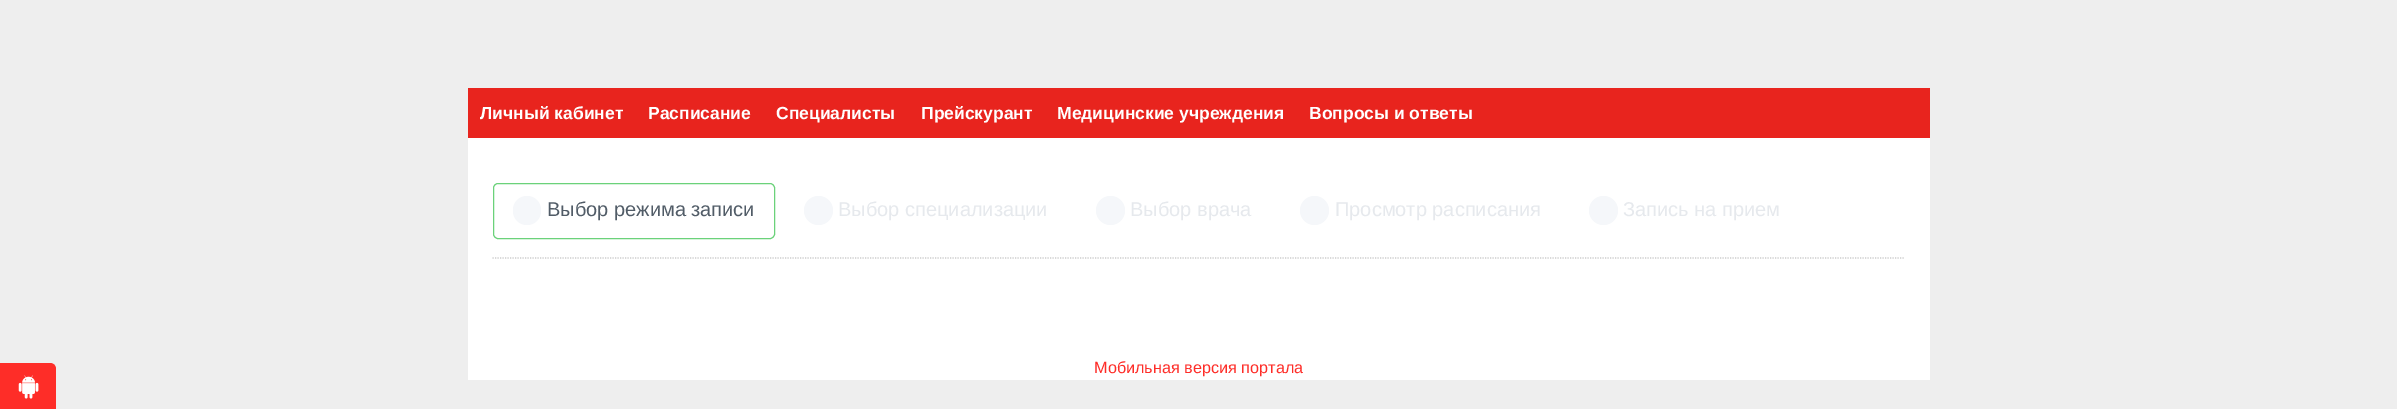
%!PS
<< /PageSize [2397 409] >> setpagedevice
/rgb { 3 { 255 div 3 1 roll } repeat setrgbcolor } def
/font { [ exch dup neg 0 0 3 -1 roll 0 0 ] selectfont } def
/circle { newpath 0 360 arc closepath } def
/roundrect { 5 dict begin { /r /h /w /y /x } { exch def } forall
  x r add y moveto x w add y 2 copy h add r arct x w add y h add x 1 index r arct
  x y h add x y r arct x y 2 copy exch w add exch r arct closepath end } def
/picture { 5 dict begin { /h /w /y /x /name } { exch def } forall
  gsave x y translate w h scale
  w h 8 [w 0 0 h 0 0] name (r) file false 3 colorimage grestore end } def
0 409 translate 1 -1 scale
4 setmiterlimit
238 238 238 rgb
0 0 2397 409 rectfill
232 36 30 rgb
468 88 1462 50 rectfill
255 255 255 rgb
468 138 1462 242 rectfill
204 204 204 rgb
1.2 setlinewidth
[1.25 1.25] 0 setdash
492.5 258 moveto 1905 258 lineto stroke
107 210 122 rgb
1 setlinewidth
[] 0 setdash
493.5 183.5 281 55 4.5 roundrect stroke
245 247 250 rgb
513 196 28 29 14 roundrect fill
818.5 210.5 14.5 circle fill
1110.5 210.5 14.5 circle fill
1314.5 210.5 14.5 circle fill
1603.5 210.5 14.5 circle fill
254 45 40 rgb
0 363 moveto 50 363 lineto 53.5 363 56 365.5 56 369 curveto 56 409 lineto 56 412.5 53.5 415 50 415 curveto 0 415 lineto closepath fill
(img/1.rgb) 18 375 21 24 picture
/LiberationSans-Bold 17.5 font
255 255 255 rgb
[
  [(Личный кабинет) 480 119]
  [(Расписание) 648 119]
  [(Специалисты) 776 119]
  [(Прейскурант) 921 119]
  [(Медицинские учреждения) 1057 119]
  [(Вопросы и ответы) 1309 119]
] { aload pop moveto show } forall
/LiberationSans-Regular 20 font
81 92 103 rgb
547 216 moveto (Выбор режима записи) show
230 233 237 rgb
[
  [(Выбор специализации) 838 216]
  [(Выбор врача) 1130 216]
  [(Просмотр расписания) 1335 216]
  [(Запись на прием) 1623 216]
] { aload pop moveto show } forall
/LiberationSans-Regular 16.25 font
254 45 40 rgb
1094 373 moveto (Мобильная версия портала) show
showpage
